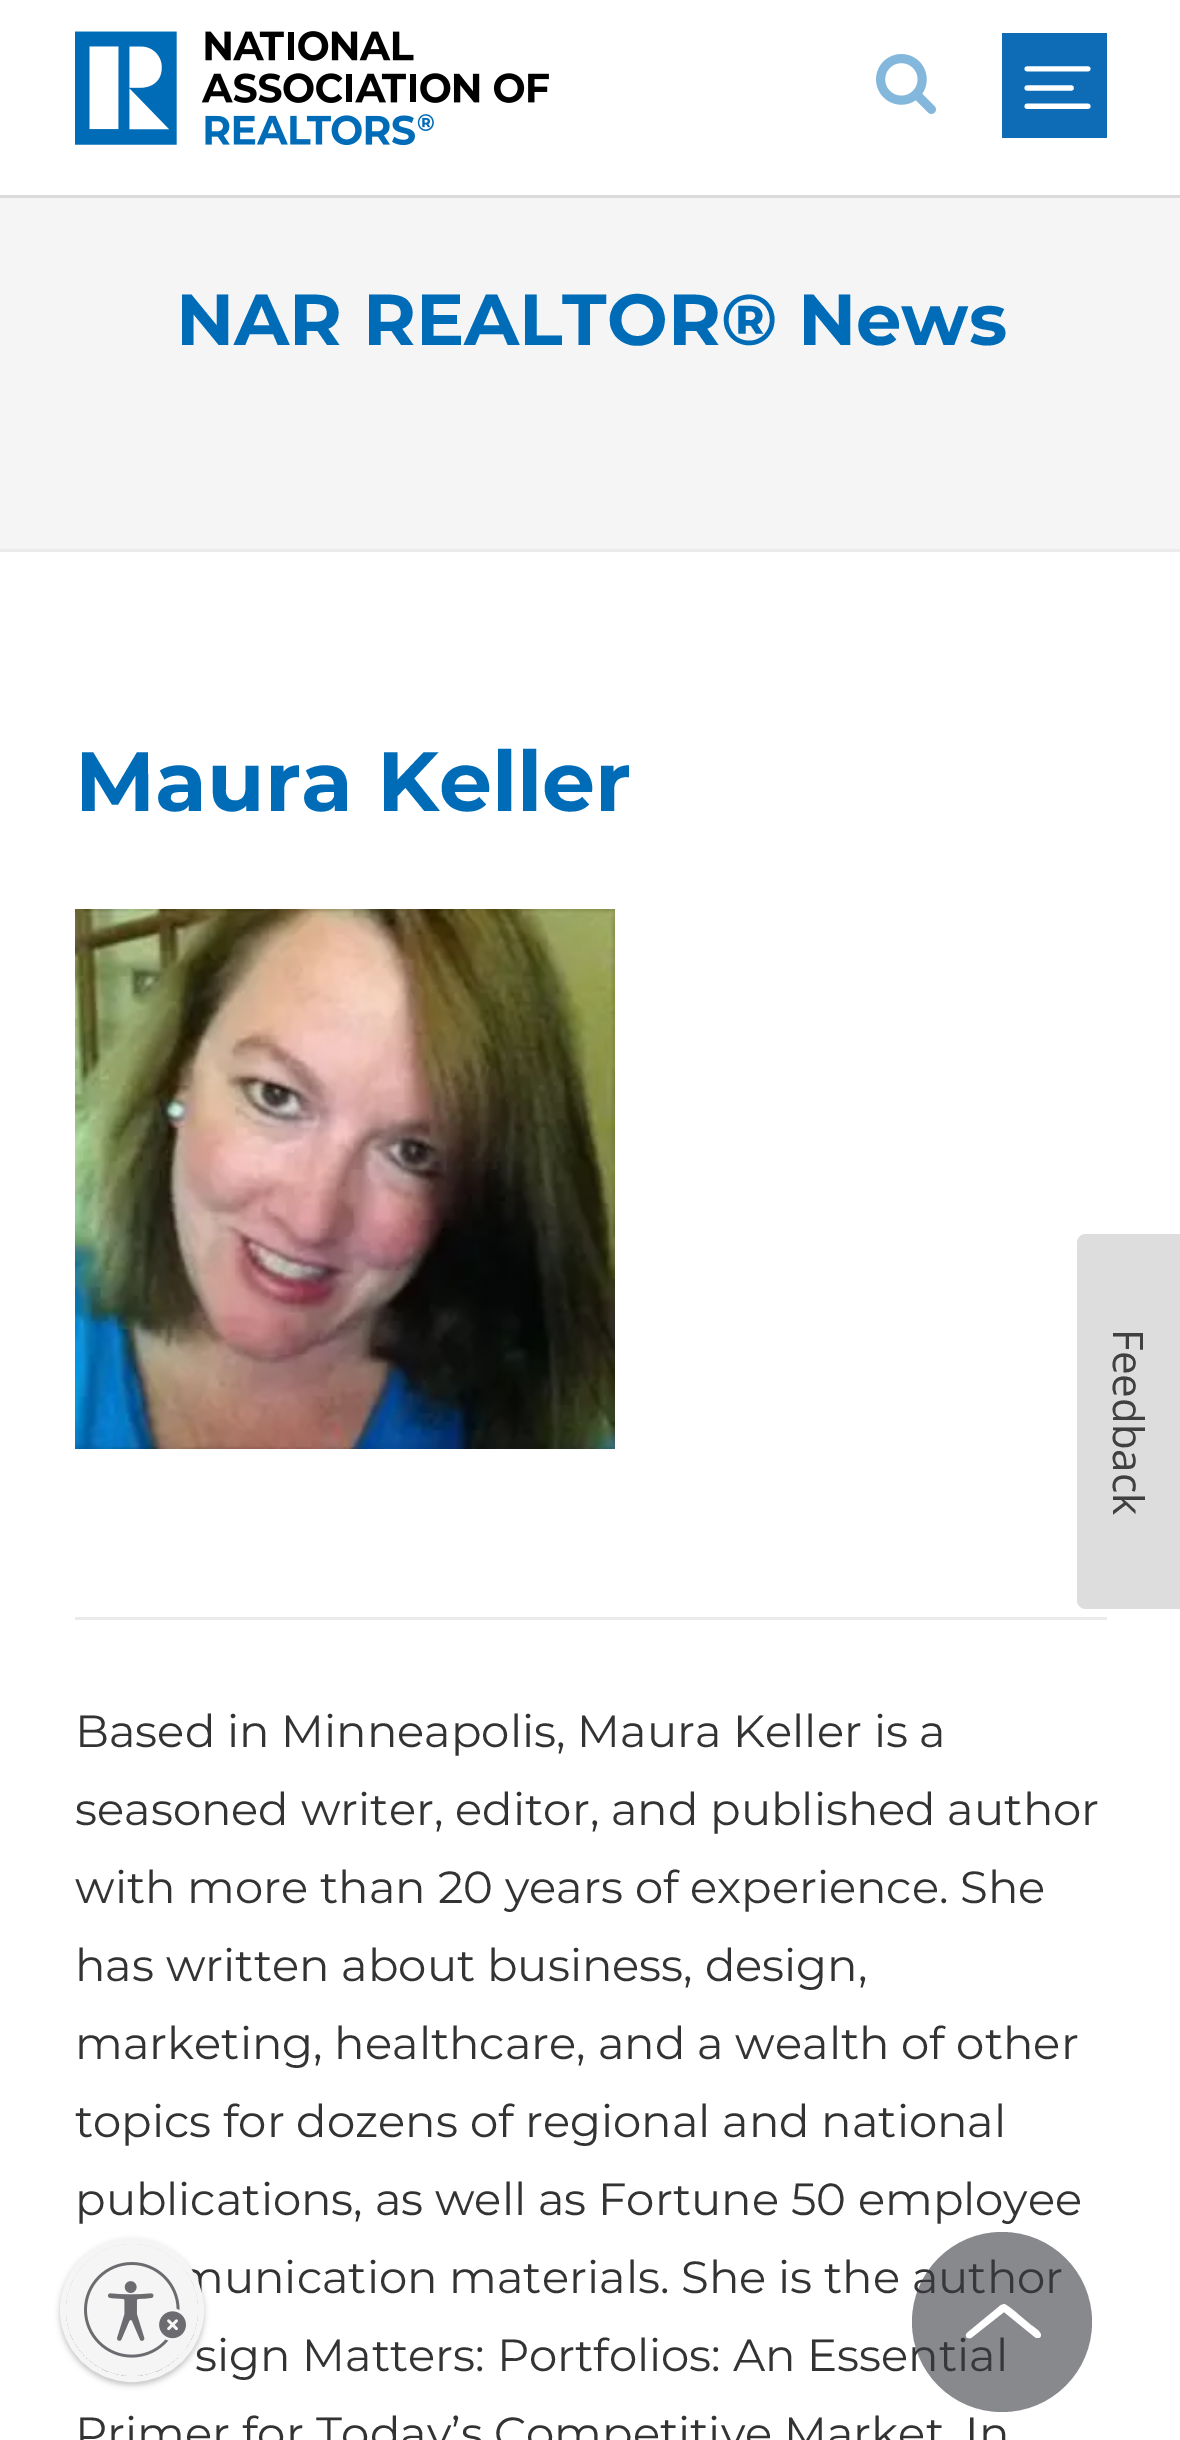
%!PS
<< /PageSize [1180 2440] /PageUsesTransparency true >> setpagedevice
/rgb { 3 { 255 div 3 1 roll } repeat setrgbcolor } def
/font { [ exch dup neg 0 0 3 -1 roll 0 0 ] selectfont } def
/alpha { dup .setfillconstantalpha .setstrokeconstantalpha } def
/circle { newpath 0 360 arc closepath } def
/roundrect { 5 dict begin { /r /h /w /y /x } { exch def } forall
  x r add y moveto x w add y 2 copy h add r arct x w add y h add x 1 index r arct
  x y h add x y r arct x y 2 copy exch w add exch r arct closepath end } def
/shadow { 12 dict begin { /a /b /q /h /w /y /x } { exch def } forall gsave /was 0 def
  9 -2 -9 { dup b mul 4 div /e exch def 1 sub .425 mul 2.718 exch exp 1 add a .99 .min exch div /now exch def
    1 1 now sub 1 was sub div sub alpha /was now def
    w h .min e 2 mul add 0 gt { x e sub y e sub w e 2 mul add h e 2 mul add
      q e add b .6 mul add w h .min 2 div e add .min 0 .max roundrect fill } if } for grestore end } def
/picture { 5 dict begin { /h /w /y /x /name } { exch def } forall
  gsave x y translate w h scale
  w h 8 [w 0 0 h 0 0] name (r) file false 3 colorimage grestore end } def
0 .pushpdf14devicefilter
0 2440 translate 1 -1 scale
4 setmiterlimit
255 255 255 rgb
0 0 1180 2440 rectfill
219 219 219 rgb
0 195 1180 3 rectfill
(img/1.rgb) 75 31 474 115 picture
(img/2.rgb) 876 54 60 60 picture
(img/3.rgb) 1002 33 105 105 picture
235 235 235 rgb
0 549 1180 3 rectfill
245 245 245 rgb
0 198 1180 351 rectfill
(img/4.rgb) 75 909 540 540 picture
235 235 235 rgb
75 1617 1032 3 rectfill
221 221 221 rgb
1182 1234 moveto 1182 1609 lineto 1086 1609 lineto 1081 1609 1077 1605 1077 1600 curveto 1077 1243 lineto 1077 1238 1081 1234 1086 1234 curveto closepath fill
0 0 0 rgb
60 2241 144 144 72 3 0.24 shadow
/Montserrat-Bold 72 font
0 107 183 rgb
176 345 moveto (NAR REALTOR® News) show
/Montserrat-Bold 84 font
75 811 moveto (Maura Keller) show
/Montserrat-Regular 45 font
51 51 51 rgb
[
  [(Based in Minneapolis, Maura Keller is a) 75 1747]
  [(seasoned writer, editor, and published author) 75 1825]
  [(with more than 20 years of experience. She) 75 1903]
  [(has written about business, design,) 75 1981]
  [(marketing, healthcare, and a wealth of other) 75 2059]
  [(topics for dozens of regional and national) 75 2137]
  [(publications, as well as Fortune 50 employee) 75 2215]
  [(munication materials. She is the author) 176 2293]
  [(sign Matters: Portfolios: An Essential) 195 2371]
  [(Primer for Today’s Competitive Market. In) 75 2449]
] { aload pop moveto show } forall
0.6 alpha
57 58 65 rgb
1002 2322 90 circle fill
1 alpha
255 255 255 rgb
1004 2312 moveto 971 2338 lineto 968 2339 964 2337 967 2333 curveto 1001 2305 lineto 1004 2304 lineto 1006 2304 1017 2313 1019 2315 curveto 1031 2325 lineto 1032 2326 1046 2334 1039 2338 curveto 1036 2338 lineto closepath fill
/OpenSans-Regular 42 font
64 64 64 rgb
gsave 1113 1329 translate 90 rotate 0 0 moveto (Feedback) show grestore
245 245 245 rgb
6 setlinewidth
132 2310 69 circle stroke
gsave
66 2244 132 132 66 roundrect clip newpath
0 0 0 rgb
66 2247 132 132 66 3 0.24 shadow
grestore
132 2310 66 circle fill
(img/5.rgb) 84 2262 102 96 picture
.poppdf14devicefilter showpage
